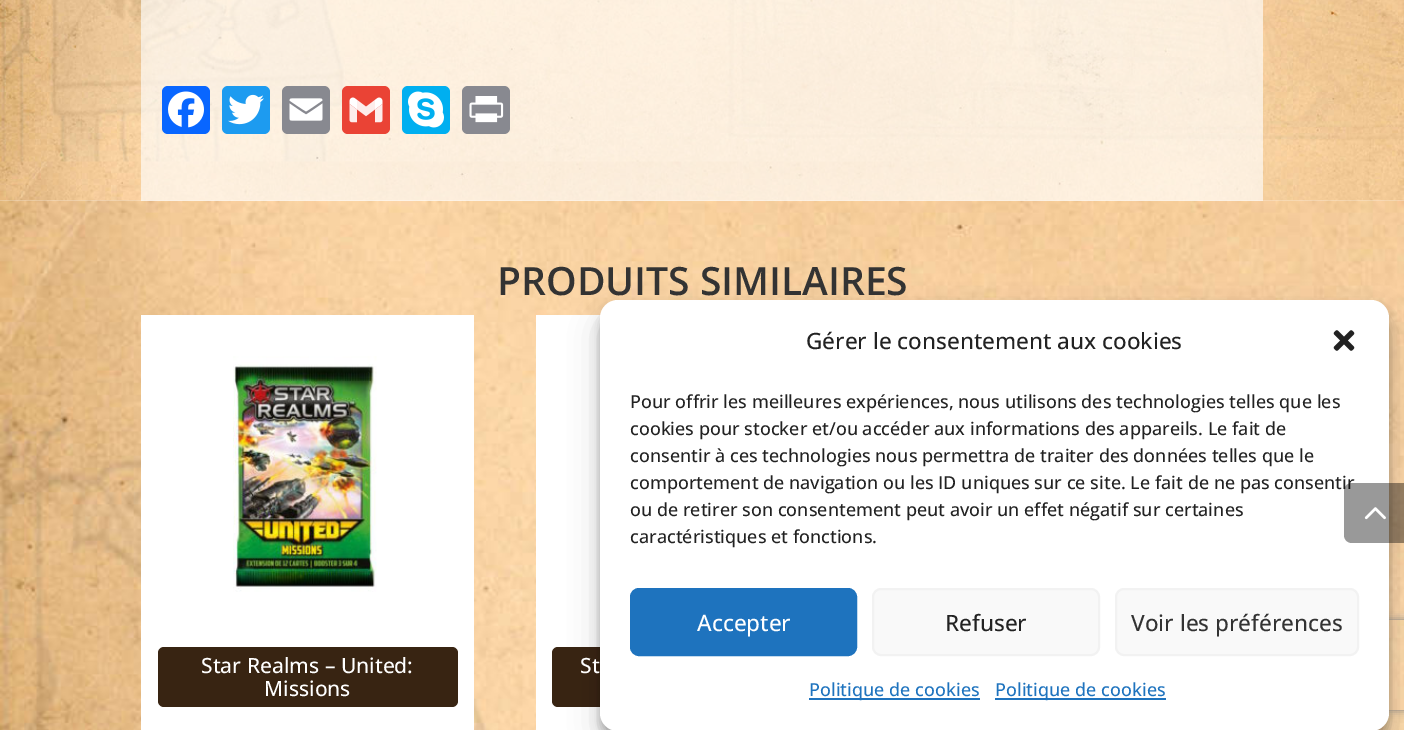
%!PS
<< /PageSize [1404 730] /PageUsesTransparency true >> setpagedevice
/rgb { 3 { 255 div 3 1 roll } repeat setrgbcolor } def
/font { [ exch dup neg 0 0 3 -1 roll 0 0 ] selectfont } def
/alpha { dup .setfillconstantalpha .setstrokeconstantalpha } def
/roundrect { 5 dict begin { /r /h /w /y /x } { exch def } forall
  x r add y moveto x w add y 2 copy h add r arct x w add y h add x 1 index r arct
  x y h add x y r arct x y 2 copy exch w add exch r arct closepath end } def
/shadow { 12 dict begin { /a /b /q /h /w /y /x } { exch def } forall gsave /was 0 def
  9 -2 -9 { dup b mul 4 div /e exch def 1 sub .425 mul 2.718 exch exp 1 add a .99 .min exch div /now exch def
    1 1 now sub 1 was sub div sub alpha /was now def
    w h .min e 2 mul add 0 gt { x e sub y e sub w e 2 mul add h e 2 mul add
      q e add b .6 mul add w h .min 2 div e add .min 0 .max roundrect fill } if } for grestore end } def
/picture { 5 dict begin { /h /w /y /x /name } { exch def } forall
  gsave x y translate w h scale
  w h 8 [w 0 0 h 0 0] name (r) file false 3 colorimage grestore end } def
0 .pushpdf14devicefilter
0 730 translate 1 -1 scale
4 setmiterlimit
255 255 255 rgb
0 0 1404 730 rectfill
(img/1.rgb) 0 0 1404 201 picture
0.64 alpha
141 0 1122 47 rectfill
1 alpha
(img/8.rgb) 0 200 1404 530 picture
0.64 alpha
141 47 1122 154 rectfill
1 alpha
8 102 255 rgb
162 86 48 48 6 roundrect fill
(img/2.rgb) 168 91 36 37 picture
29 155 240 rgb
222 86 48 48 6 roundrect fill
(img/3.rgb) 228 94 36 31 picture
136 137 144 rgb
282 86 48 48 6 roundrect fill
(img/4.rgb) 289 98 34 23 picture
234 67 53 rgb
342 86 48 48 6 roundrect fill
(img/5.rgb) 349 97 34 26 picture
0 175 240 rgb
402 86 48 48 6 roundrect fill
(img/6.rgb) 408 91 36 37 picture
136 137 144 rgb
462 86 48 48 6 roundrect fill
(img/7.rgb) 469 96 35 27 picture
255 255 255 rgb
141 315 333 415 rectfill
(img/9.rgb) 233 356 144 236 picture
56 36 18 rgb
158 647 300 60 6 roundrect fill
255 255 255 rgb
536 315 76 415 rectfill
56 36 18 rgb
552 647 300 60 6 roundrect fill
0 0 0 rgb
600 309 789 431 18 4.5 0.23 shadow
600 315 789 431 18 15 0.19 shadow
gsave
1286 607 moveto 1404 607 lineto 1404 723 lineto 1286 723 lineto closepath 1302 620 moveto 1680 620 lineto 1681.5 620 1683 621.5 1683 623 curveto 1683 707 lineto 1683 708.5 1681.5 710 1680 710 curveto 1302 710 lineto 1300.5 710 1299 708.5 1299 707 curveto 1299 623 lineto 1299 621.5 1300.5 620 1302 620 curveto closepath eoclip newpath
128 128 128 rgb
1299 620 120 90 3 4 1 shadow
grestore
255 255 255 rgb
600 300 789 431 18 roundrect fill
(img/11.rgb) 1333 330 22 21 picture
30 115 190 rgb
631 589 225 66 8 roundrect gsave fill grestore
2 setlinewidth
stroke
249 249 249 rgb
873 589 226 66 8 roundrect gsave fill grestore
242 242 242 rgb
stroke
249 249 249 rgb
1116 589 242 66 8 roundrect gsave fill grestore
242 242 242 rgb
stroke
30 115 190 rgb
809 698 171 2 rectfill
995 698 171 2 rectfill
/OpenSans-SemiBold 39 font
51 51 51 rgb
497 295 moveto (PRODUITS SIMILAIRES) show
/OpenSans-Medium 21 font
255 255 255 rgb
[
  [(Star Realms – United:) 201 673]
  [(Missions) 264 696]
  [(St) 580 673]
] { aload pop moveto show } forall
/OpenSans-Medium 22.5 font
34 34 34 rgb
806 349 moveto (Gérer le consentement aux cookies) show
/OpenSans-Medium 18 font
[
  [(Pour offrir les meilleures expériences, nous utilisons des technologies telles que les) 630 408]
  [(cookies pour stocker et/ou accéder aux informations des appareils. Le fait de) 630 435]
  [(consentir à ces technologies nous permettra de traiter des données telles que le) 630 462]
  [(comportement de navigation ou les ID uniques sur ce site. Le fait de ne pas consentir) 630 489]
] { aload pop moveto show } forall
0.4 alpha
0 0 0 rgb
1352 483 moveto 1404 483 lineto 1404 543 lineto 1352 543 lineto 1347.5 543 1344 539.5 1344 535 curveto 1344 491 lineto 1344 486.5 1347.5 483 1352 483 curveto closepath fill
1 alpha
(img/10.rgb) 1364 507 22 13 picture
34 34 34 rgb
630 516 moveto (ou de retirer son consentement peut avoir un effet négatif sur certaines) show
630 543 moveto (caractéristiques et fonctions.) show
/OpenSans-Medium 22.5 font
255 255 255 rgb
697 631 moveto (Accepter) show
34 34 34 rgb
945 631 moveto (Refuser) show
51 51 51 rgb
1131 631 moveto (Voir les préférences) show
/OpenSans-Medium 18 font
30 115 190 rgb
809 696 moveto (Politique de cookies) show
995 696 moveto (Politique de cookies) show
.poppdf14devicefilter showpage
